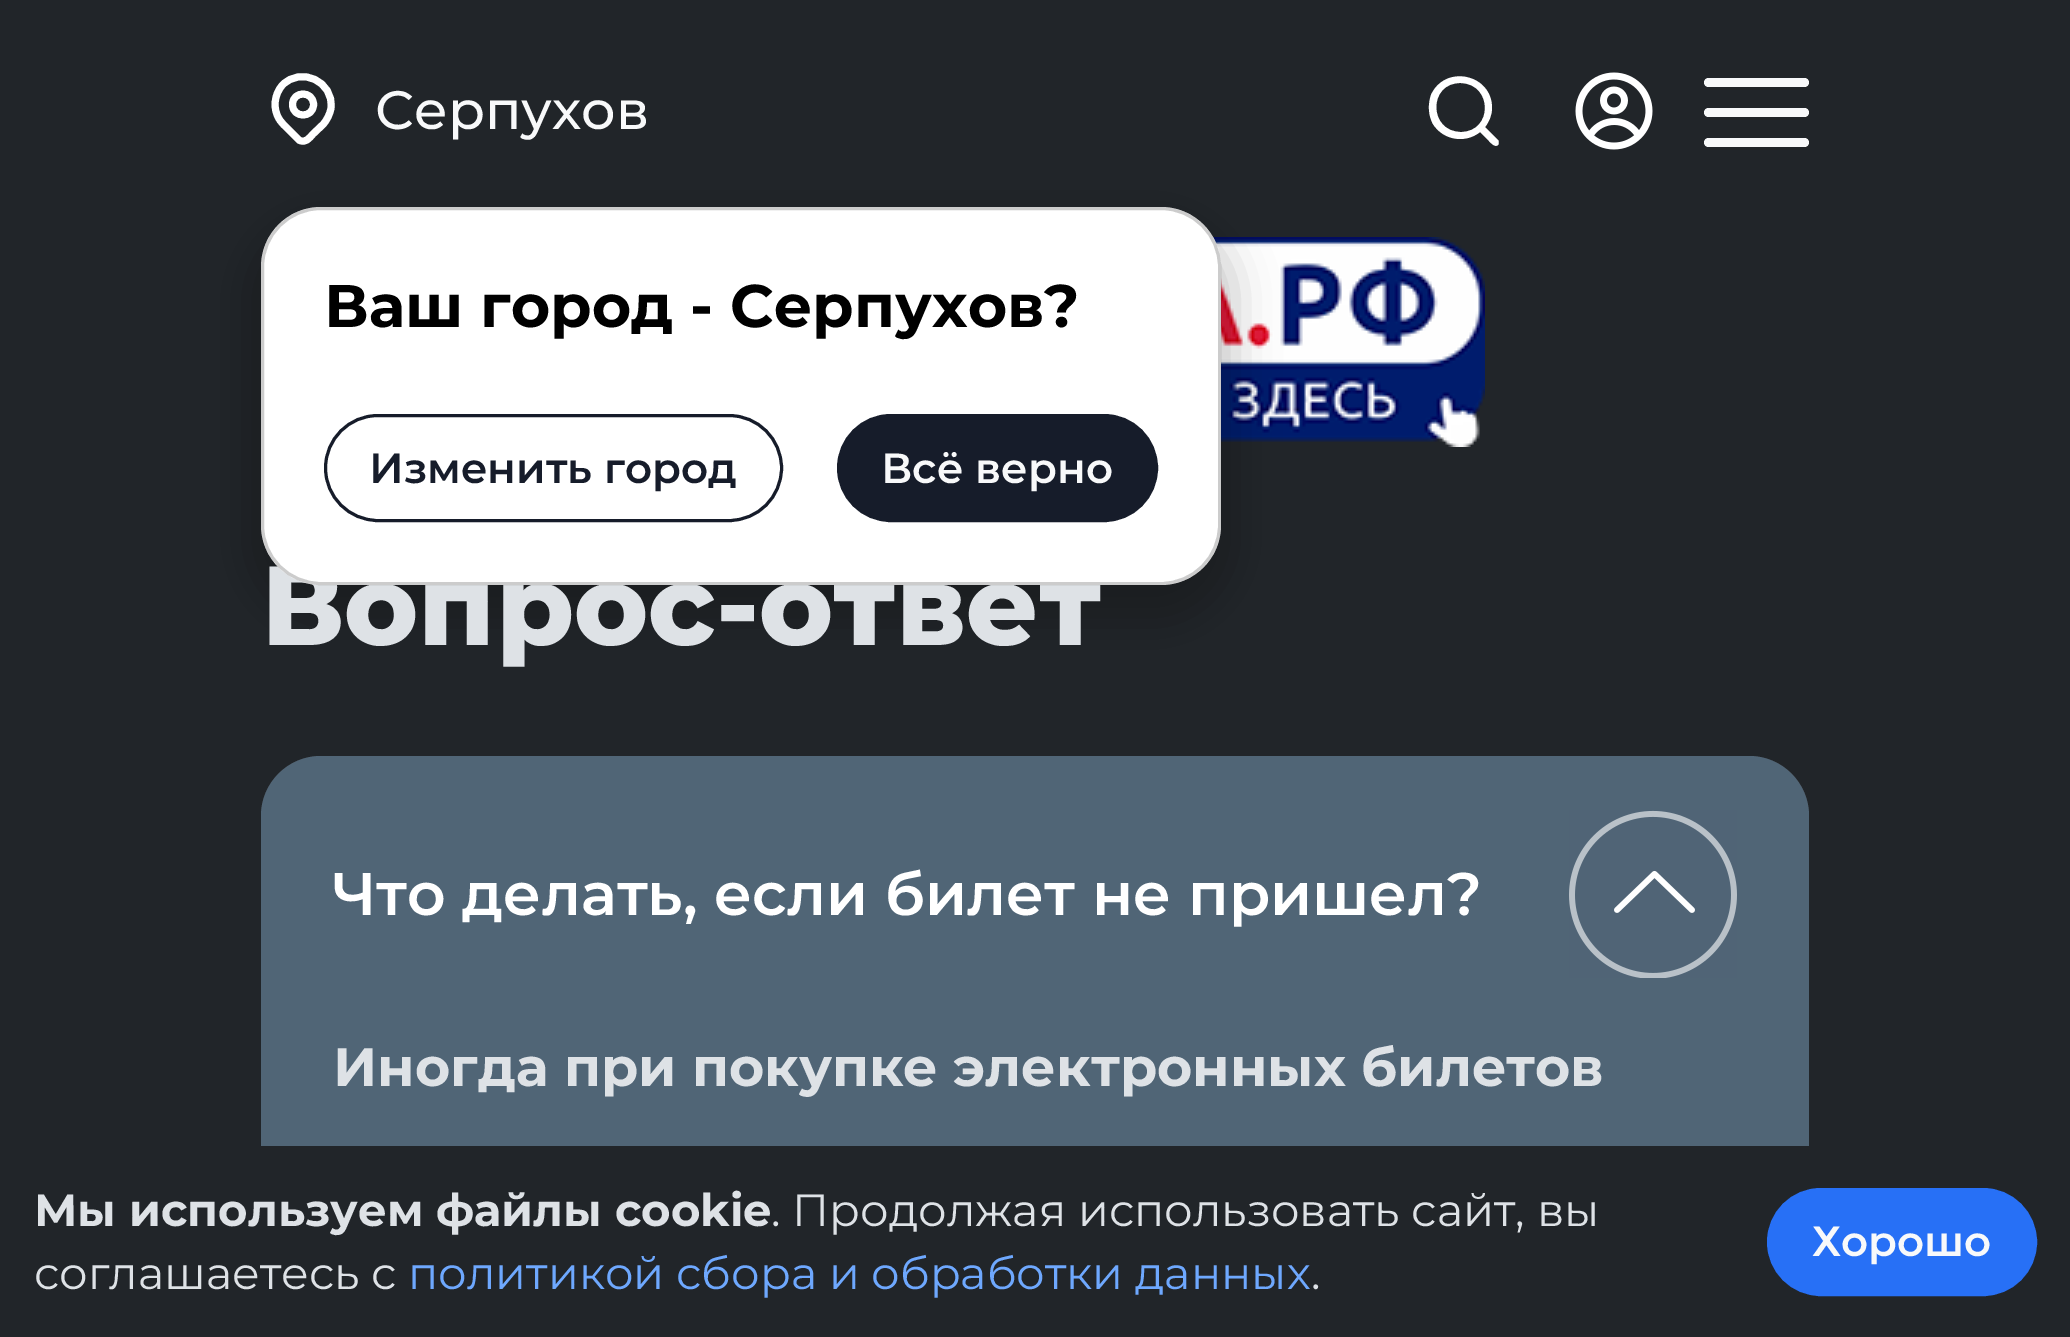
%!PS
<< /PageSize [2070 1337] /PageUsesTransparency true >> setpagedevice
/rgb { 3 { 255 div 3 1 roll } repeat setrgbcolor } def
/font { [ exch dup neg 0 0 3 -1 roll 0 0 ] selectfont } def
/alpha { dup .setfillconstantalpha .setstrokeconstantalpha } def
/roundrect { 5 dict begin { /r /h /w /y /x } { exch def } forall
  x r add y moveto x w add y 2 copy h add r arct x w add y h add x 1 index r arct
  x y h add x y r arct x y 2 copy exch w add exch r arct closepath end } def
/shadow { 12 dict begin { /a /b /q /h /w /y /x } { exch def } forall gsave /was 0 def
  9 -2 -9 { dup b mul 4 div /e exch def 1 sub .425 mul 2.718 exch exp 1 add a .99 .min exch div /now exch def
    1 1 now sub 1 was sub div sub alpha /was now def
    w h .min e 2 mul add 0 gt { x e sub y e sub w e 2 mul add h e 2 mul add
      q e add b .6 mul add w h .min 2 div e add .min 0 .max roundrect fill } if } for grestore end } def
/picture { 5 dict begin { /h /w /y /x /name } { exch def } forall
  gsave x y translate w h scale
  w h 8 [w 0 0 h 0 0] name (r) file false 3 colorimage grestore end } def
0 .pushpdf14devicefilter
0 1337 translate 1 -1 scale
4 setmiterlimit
33 37 41 rgb
0 0 2070 1337 rectfill
255 255 255 rgb
7 setlinewidth
1 setlinecap
1 setlinejoin
292.5 104.5 moveto 292.5 118.5 313.5 118.5 313.5 104.5 curveto 313.5 90.5 292.5 90.5 292.5 104.5 curveto closepath stroke
323 124.5 moveto 313 134 lineto 309.5 138 305 144 299 140 curveto 288 129 lineto 285 126 281.5 123 279.5 119.5 curveto 272.5 109 274 94.5 282.5 85 curveto 301 66 334 81.5 331 108 curveto 330 114 327 120 323 124.5 curveto closepath stroke
(img/1.rgb) 1212 237 273 210 picture
0 0 0 rgb
246 216 990 408 75 21 0.2 shadow
255 255 255 rgb
1498 140 moveto 1485 127 lineto 1489 122 1492 115 1492 108 curveto 1492 74 1445 64 1431 95 curveto 1428 104 1428 115 1433 124 curveto 1443 140 1465 144 1480 132 curveto 1489 141 lineto 1490 142 1495 148 1498 145 curveto 1499 144 1499 141 1498 140 curveto closepath 1461 132 moveto 1428 132 1428 82 1461 83 curveto 1493 84 1493 132 1461 132 curveto closepath fill
(img/2.rgb) 1575 72 78 78 picture
248 249 250 rgb
1704 78 105 9 4.5 roundrect fill
1704 108 105 9 4.5 roundrect fill
1704 138 105 9 4.5 roundrect fill
77 80 83 rgb
261 756 1548 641 60 roundrect fill
0.5 alpha
83 121 153 rgb
321 756 moveto 1749 756 lineto 1782 756 1809 783 1809 816 curveto 1809 1032 lineto 261 1032 lineto 261 816 lineto 261 783 288 756 321 756 curveto closepath fill
1 alpha
(img/3.rgb) 1569 810 168 168 picture
80 101 118 rgb
261 1032 1548 114 rectfill
33 37 41 rgb
261 1146 1548 191 rectfill
39 112 246 rgb
1768.5 1189.5 267 105 52.5 roundrect gsave fill grestore
3 setlinewidth
0 setlinecap
0 setlinejoin
stroke
/Montserrat-Medium 54 font
248 249 250 rgb
375 129 moveto (Серпухов) show
/Montserrat-ExtraBold 112 font
222 226 230 rgb
261 645 moveto (Вопрос-ответ) show
255 255 255 rgb
261 207 960 378 60 roundrect fill
0.2 alpha
0 0 0 rgb
262.5 208.5 957 375 58.5 roundrect stroke
1 alpha
22 28 42 rgb
838.5 415.5 318 105 52.5 roundrect gsave fill grestore
stroke
/Montserrat-SemiBold 42 font
248 249 250 rgb
881 483 moveto (Всё верно) show
22 28 42 rgb
325.5 415.5 456 105 52.5 roundrect stroke
369 483 moveto (Изменить город) show
/Montserrat-Bold 60 font
0 0 0 rgb
324 327 moveto (Ваш город - Серпухов?) show
/Montserrat-SemiBold 60 font
255 255 255 rgb
333 915 moveto (Что делать, если билет не пришел?) show
/Montserrat-Bold 54 font
222 226 230 rgb
333 1086 moveto (Иногда при покупке электронных билетов) show
/Montserrat-Bold 45 font
34 1226 moveto (Мы используем файлы cookie) show
/Montserrat-Regular 45 font
771 1226 moveto (. Продолжая использовать сайт, вы) show
34 1289 moveto (соглашаетесь с) show
110 168 254 rgb
408 1289 moveto (политикой сбора и обработки данных) show
222 226 230 rgb
1311 1289 moveto (.) show
/Montserrat-SemiBold 42 font
248 249 250 rgb
1812 1256 moveto (Хорошо) show
.poppdf14devicefilter showpage
